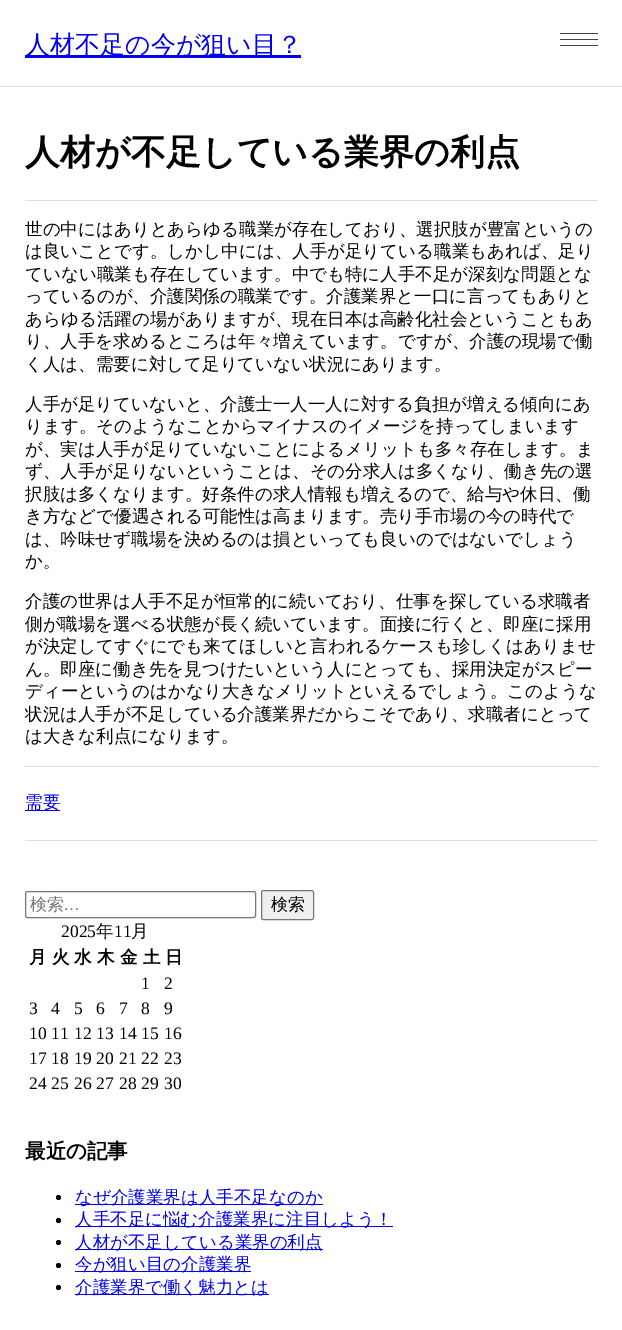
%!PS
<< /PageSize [622 1330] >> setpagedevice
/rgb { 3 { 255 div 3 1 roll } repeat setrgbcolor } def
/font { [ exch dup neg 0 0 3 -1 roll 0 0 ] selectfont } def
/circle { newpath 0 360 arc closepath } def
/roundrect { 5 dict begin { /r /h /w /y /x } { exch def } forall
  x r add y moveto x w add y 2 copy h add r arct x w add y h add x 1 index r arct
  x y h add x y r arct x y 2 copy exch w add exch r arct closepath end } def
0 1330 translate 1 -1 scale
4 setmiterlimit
255 255 255 rgb
0 0 622 1330 rectfill
[
  [0 86 622 1 221 221 221]
  [25 55 276 3 0 0 238]
  [560 39 38 1 68 68 68]
  [560 33 38 1 68 68 68]
  [560 45 38 1 68 68 68]
  [25 840 573 1 221 221 221]
  [25 200 573 1 221 221 221]
  [25 766 573 1 221 221 221]
  [25 810 35 1 0 0 238]
] { aload pop rgb rectfill } forall
118 118 118 rgb
25.5 891.5 230 26 2 roundrect stroke
239 239 239 rgb
261.5 890.5 52 29 2 roundrect gsave fill grestore
118 118 118 rgb
stroke
0 0 0 rgb
58.5 1197.5 2.5 circle fill
0 0 238 rgb
75 1204 248 1 rectfill
0 0 0 rgb
58.5 1220.5 2.5 circle fill
0 0 238 rgb
75 1226 318 1 rectfill
0 0 0 rgb
58.5 1242.5 2.5 circle fill
0 0 238 rgb
75 1249 248 1 rectfill
0 0 0 rgb
58.5 1265.5 2.5 circle fill
0 0 238 rgb
75 1271 176 1 rectfill
0 0 0 rgb
58.5 1287.5 2.5 circle fill
0 0 238 rgb
75 1294 194 1 rectfill
/WenQuanYiZenHei-Medium 25 font
25 53 moveto (人材不足の今が狙い目？) show
/WenQuanYiZenHei-Bold 35 font
0 0 0 rgb
25 164 moveto (人材が不足している業界の利点) show
/WenQuanYiZenHei-Medium 17.5 font
[
  [(世の中にはありとあらゆる職業が存在しており、選択肢が豊富というの) 25 235]
  [(は良いことです。しかし中には、人手が足りている職業もあれば、足り) 25 257]
  [(ていない職業も存在しています。中でも特に人手不足が深刻な問題とな) 25 280]
  [(っているのが、介護関係の職業です。介護業界と一口に言ってもありと) 25 302]
  [(あらゆる活躍の場がありますが、現在日本は高齢化社会ということもあ) 25 325]
  [(り、人手を求めるところは年々増えています。ですが、介護の現場で働) 25 347]
  [(く人は、需要に対して足りていない状況にあります。) 25 370]
  [(人手が足りていないと、介護士一人一人に対する負担が増える傾向にあ) 25 410]
  [(ります。そのようなことからマイナスのイメージを持ってしまいます) 25 432]
  [(が、実は人手が足りていないことによるメリットも多々存在します。ま) 25 455]
  [(ず、人手が足りないということは、その分求人は多くなり、働き先の選) 25 477]
  [(択肢は多くなります。好条件の求人情報も増えるので、給与や休日、働) 25 500]
  [(き方などで優遇される可能性は高まります。売り手市場の今の時代で) 25 522]
  [(は、吟味せず職場を決めるのは損といっても良いのではないでしょう) 25 545]
  [(か。) 25 567]
  [(介護の世界は人手不足が恒常的に続いており、仕事を探している求職者) 25 607]
  [(側が職場を選べる状態が長く続いています。面接に行くと、即座に採用) 25 630]
  [(が決定してすぐにでも来てほしいと言われるケースも珍しくはありませ) 25 652]
  [(ん。即座に働き先を見つけたいという人にとっても、採用決定がスピー) 25 675]
  [(ディーというのはかなり大きなメリットといえるでしょう。このような) 25 697]
  [(状況は人手が不足している介護業界だからこそであり、求職者にとって) 25 720]
  [(は大きな利点になります。) 25 742]
] { aload pop moveto show } forall
0 0 238 rgb
25 808 moveto (需要) show
/WenQuanYiZenHei-Medium 17 font
117 117 117 rgb
30 910 moveto (検索) show
/LiberationSans-Regular 17 font
63 910 moveto (…) show
/WenQuanYiZenHei-Medium 17 font
0 0 0 rgb
271 910 moveto (検索) show
/LiberationSerif-Regular 17.5 font
61 937 moveto (2025) show
/WenQuanYiZenHei-Medium 17.5 font
96 937 moveto (年) show
/LiberationSerif-Regular 17.5 font
114 937 moveto (11) show
/WenQuanYiZenHei-Medium 17.5 font
131 937 moveto (月) show
/WenQuanYiZenHei-Bold 17.5 font
29 963 moveto (月 火 水 木 金 土 日) show
/LiberationSerif-Regular 17.5 font
[
  [(1) 141 989]
  [(2) 164 989]
  [(3) 29 1014]
  [(4) 51 1014]
  [(5) 74 1014]
  [(6) 96 1014]
  [(7) 119 1014]
  [(8) 141 1014]
  [(9) 164 1014]
  [(10) 29 1039]
  [(11) 51 1039]
  [(12) 74 1039]
  [(13) 96 1039]
  [(14) 119 1039]
  [(15) 141 1039]
  [(16) 164 1039]
  [(17) 29 1064]
  [(18) 51 1064]
  [(19) 74 1064]
  [(20) 96 1064]
  [(21) 119 1064]
  [(22) 141 1064]
  [(23) 164 1064]
  [(24) 29 1089]
  [(25) 51 1089]
  [(26) 74 1089]
  [(27) 96 1089]
  [(28) 119 1089]
  [(29) 141 1089]
  [(30) 164 1089]
] { aload pop moveto show } forall
/WenQuanYiZenHei-Bold 20.5 font
25 1158 moveto (最近の記事) show
/WenQuanYiZenHei-Medium 17.5 font
0 0 238 rgb
[
  [(なぜ介護業界は人手不足なのか) 75 1203]
  [(人手不足に悩む介護業界に注目しよう！) 75 1225]
  [(人材が不足している業界の利点) 75 1248]
  [(今が狙い目の介護業界) 75 1270]
  [(介護業界で働く魅力とは) 75 1293]
] { aload pop moveto show } forall
showpage
